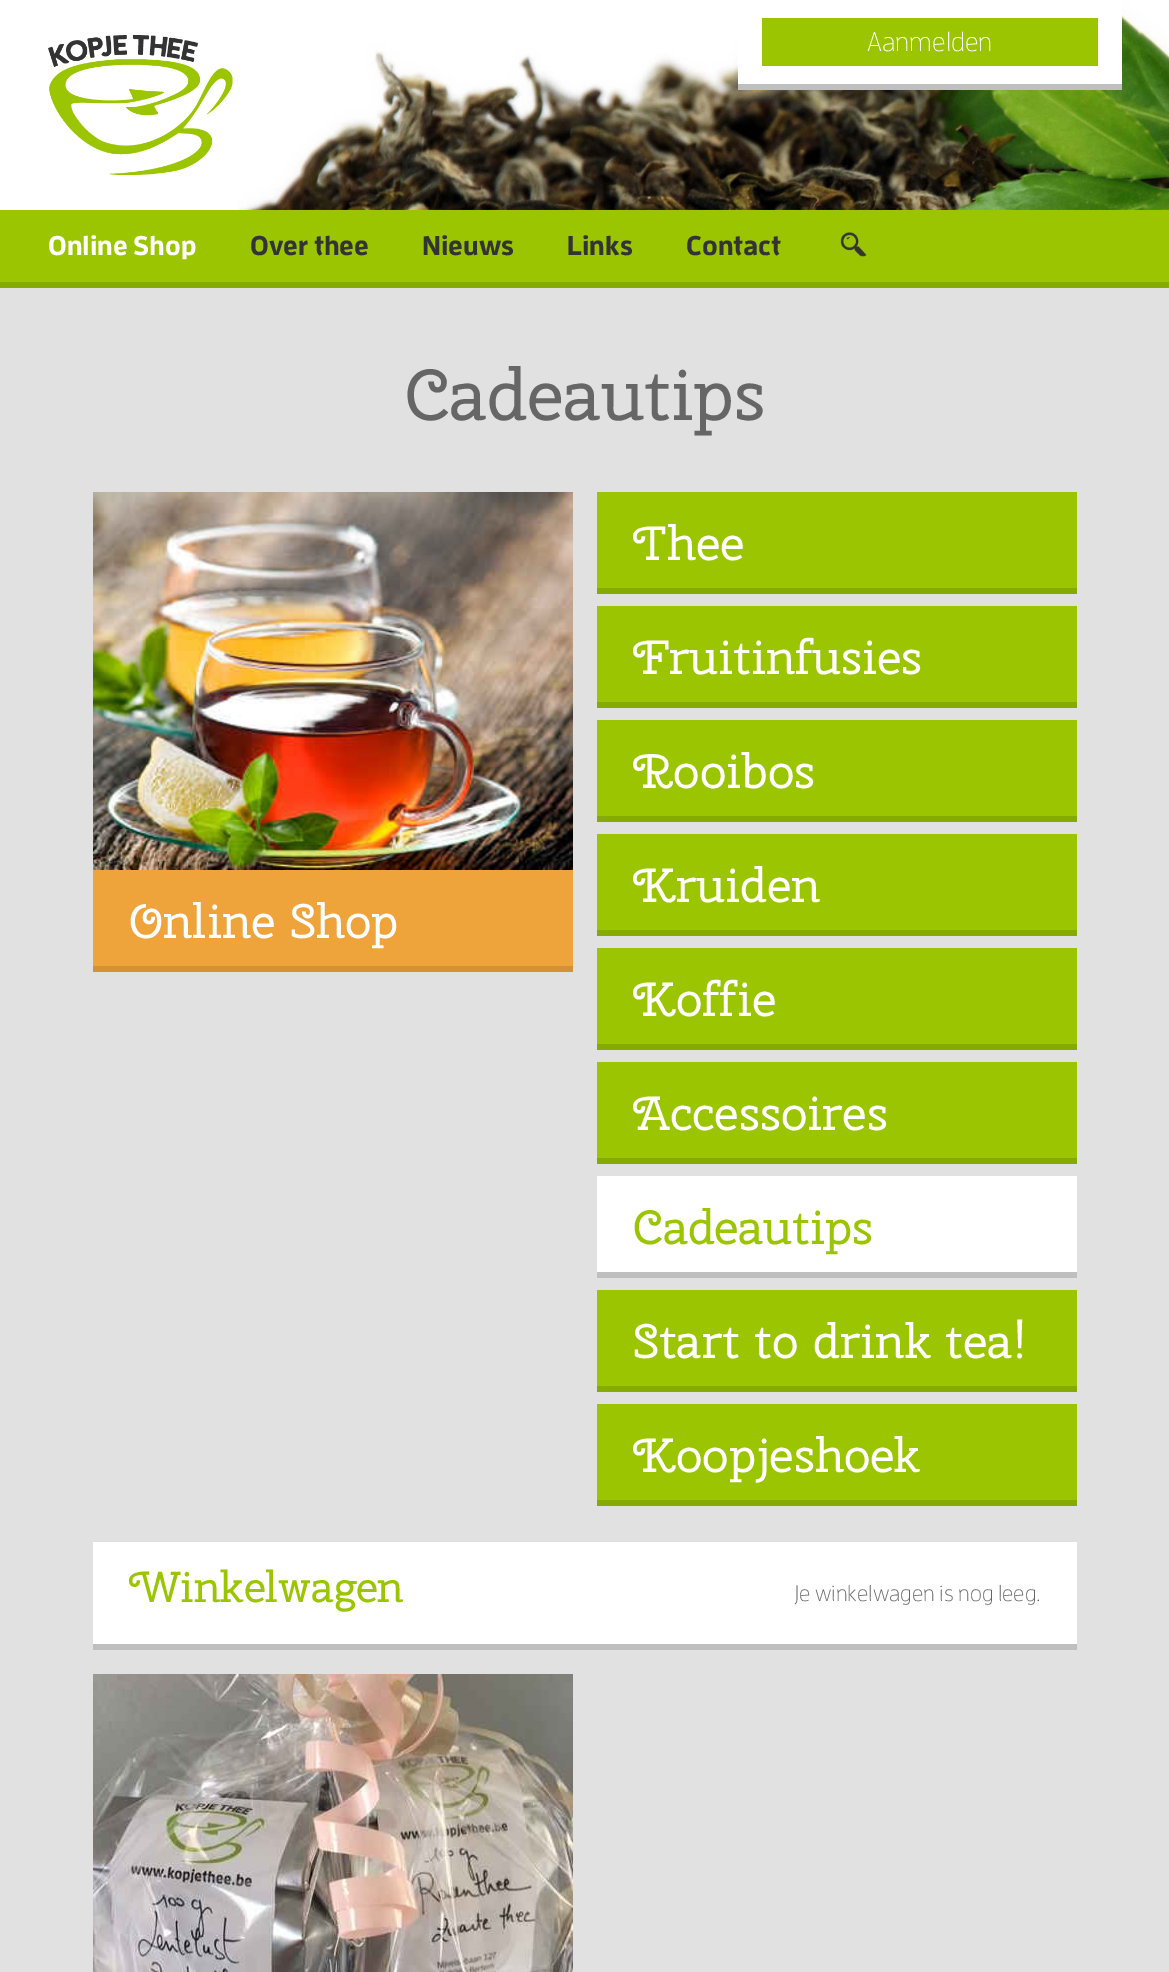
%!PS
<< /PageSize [1169 1972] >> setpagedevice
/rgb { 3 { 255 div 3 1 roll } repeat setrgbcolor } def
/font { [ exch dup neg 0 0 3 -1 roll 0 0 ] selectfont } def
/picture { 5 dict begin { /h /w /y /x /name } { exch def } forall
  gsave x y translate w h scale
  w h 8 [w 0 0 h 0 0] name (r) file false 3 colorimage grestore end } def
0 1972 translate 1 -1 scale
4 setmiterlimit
225 225 225 rgb
0 0 1169 1972 rectfill
255 255 255 rgb
0 0 238 210 rectfill
(img/1.rgb) 238 0 931 210 picture
(img/2.rgb) 48 35 185 140 picture
[
  [738 0 384 84 255 255 255]
  [738 84 384 6 191 191 191]
  [762 18 336 48 155 197 0]
  [0 210 1169 72 155 197 0]
  [0 282 1169 6 134 171 0]
] { aload pop rgb rectfill } forall
(img/3.rgb) 840 232 27 25 picture
(img/4.rgb) 93 492 480 378 picture
[
  [93 870 480 96 238 163 59]
  [93 966 480 6 212 145 53]
  [597 492 480 96 155 197 0]
  [597 588 480 6 134 171 0]
  [597 606 480 96 155 197 0]
  [597 702 480 6 134 171 0]
  [597 720 480 96 155 197 0]
  [597 816 480 6 134 171 0]
  [597 834 480 96 155 197 0]
  [597 930 480 6 134 171 0]
  [597 948 480 96 155 197 0]
  [597 1044 480 6 134 171 0]
  [597 1062 480 96 155 197 0]
  [597 1158 480 6 134 171 0]
  [597 1176 480 96 255 255 255]
  [597 1272 480 6 191 191 191]
  [597 1290 480 96 155 197 0]
  [597 1386 480 6 134 171 0]
  [597 1404 480 96 155 197 0]
  [597 1500 480 6 134 171 0]
  [93 1542 984 102 255 255 255]
  [93 1644 984 6 191 191 191]
] { aload pop rgb rectfill } forall
(img/5.rgb) 93 1674 480 298 picture
/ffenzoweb-Regular 27 font
255 255 255 rgb
867 51 moveto (Aanmelden) show
/ffenzoweb-Bold 27 font
48 255 moveto (Online Shop) show
51 51 51 rgb
[
  [(Over thee) 250 255]
  [(Nieuws) 422 255]
  [(Links) 567 255]
  [(Contact) 686 255]
] { aload pop moveto show } forall
/CherrySwash-Regular 72 font
102 102 102 rgb
405 420 moveto (Cadeautips) show
/CherrySwash-Regular 48 font
255 255 255 rgb
[
  [(Online Shop) 129 938]
  [(Thee) 633 560]
  [(Fruitinfusies) 633 674]
  [(Rooibos) 633 788]
  [(Kruiden) 633 902]
  [(Koffie) 633 1016]
  [(Accessoires) 633 1130]
] { aload pop moveto show } forall
155 197 0 rgb
633 1244 moveto (Cadeautips) show
255 255 255 rgb
633 1358 moveto (Start to drink tea!) show
633 1472 moveto (Koopjeshoek) show
/CherrySwash-Regular 43.25 font
155 197 0 rgb
129 1602 moveto (Winkelwagen) show
/ffenzoweb-Regular 22.5 font
102 102 102 rgb
794 1601 moveto (Je winkelwagen is nog leeg.) show
showpage
